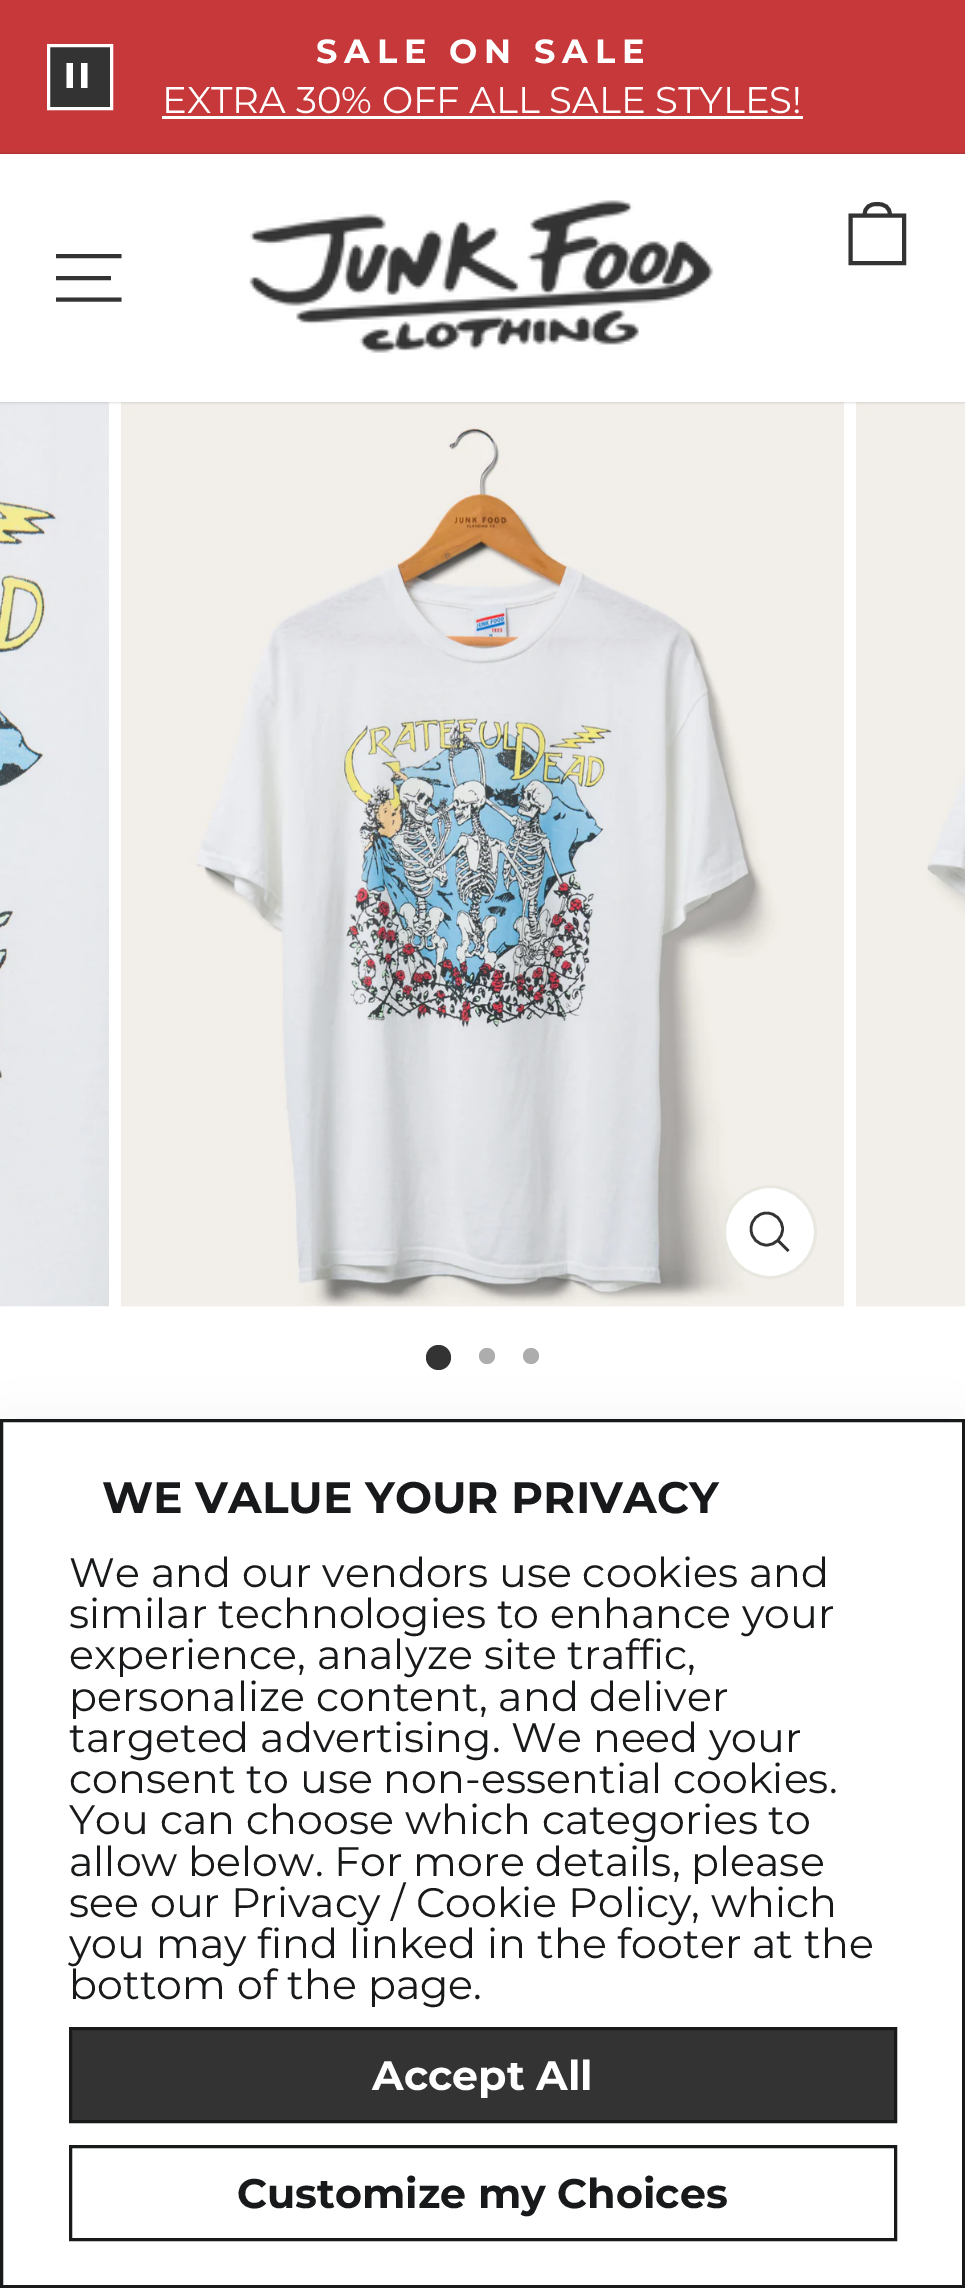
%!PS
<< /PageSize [965 2288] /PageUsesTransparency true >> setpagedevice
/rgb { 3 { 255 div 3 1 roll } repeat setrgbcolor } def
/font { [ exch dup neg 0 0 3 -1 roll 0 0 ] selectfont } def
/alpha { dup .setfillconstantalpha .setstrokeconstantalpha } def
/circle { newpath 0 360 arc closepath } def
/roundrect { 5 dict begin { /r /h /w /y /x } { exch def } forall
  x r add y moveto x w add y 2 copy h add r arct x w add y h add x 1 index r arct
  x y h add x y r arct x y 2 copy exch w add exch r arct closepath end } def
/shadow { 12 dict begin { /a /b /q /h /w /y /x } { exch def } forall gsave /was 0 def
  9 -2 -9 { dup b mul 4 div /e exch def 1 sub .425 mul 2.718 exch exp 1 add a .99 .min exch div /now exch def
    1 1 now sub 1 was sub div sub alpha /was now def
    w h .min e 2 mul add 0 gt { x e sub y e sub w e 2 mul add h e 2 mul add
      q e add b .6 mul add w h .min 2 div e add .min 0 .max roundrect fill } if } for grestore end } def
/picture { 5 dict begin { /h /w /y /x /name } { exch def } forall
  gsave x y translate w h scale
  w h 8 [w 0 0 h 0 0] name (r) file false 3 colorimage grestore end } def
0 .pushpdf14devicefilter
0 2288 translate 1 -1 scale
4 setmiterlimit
255 255 255 rgb
0 0 965 2288 rectfill
198 56 57 rgb
0 0 965 154 rectfill
51 51 51 rgb
48.5 45.5 moveto 111.5 45.5 lineto 111.5 108.5 lineto 48.5 108.5 lineto closepath gsave fill grestore
255 255 255 rgb
3 setlinewidth
stroke
gsave
66 63 28 28 rectclip
66.5 60.5 moveto 73 60.5 lineto 73 88 lineto 66.5 88 lineto closepath 81 60.5 moveto 87.5 60.5 lineto 87.5 88 lineto 81 88 lineto closepath eofill
grestore
162 116 641 3 rectfill
(img/2.rgb) 0 402 109 905 picture
(img/3.rgb) 121 402 723 905 picture
(img/4.rgb) 856 402 109 905 picture
0 0 0 rgb
0 154 965 248 0 1.5 0.2 shadow
255 255 255 rgb
0 154 965 248 rectfill
(img/1.rgb) 249 200 465 153 picture
51 51 51 rgb
3.9 setlinewidth
850.5 215.5 moveto 904 215.5 lineto 904 263 lineto 850.5 263 lineto closepath 864.5 215.5 moveto 864.5 206.5 870.5 204 877 204 curveto 884 204 890 206.5 890 215.5 curveto stroke
56 256 moveto 121.5 256 lineto 56 278 moveto 111 278 lineto 56 299.5 moveto 121.5 299.5 lineto stroke
255 255 255 rgb
770 1232 45.5 circle gsave fill grestore
232 232 225 rgb
3 setlinewidth
stroke
51 51 51 rgb
2.6 setlinewidth
782.5 1229 moveto 782.5 1238 775.5 1245 766.5 1245 curveto 758 1245 751 1238 751 1229 curveto 751 1220 758 1213 766.5 1213 curveto 775.5 1213 782.5 1220 782.5 1229 curveto closepath 788.5 1251 moveto 778 1240.5 lineto stroke
438.5 1357.5 12.5 circle fill
173 173 173 rgb
487 1356 8 circle fill
531 1356 8 circle fill
1 1 63 rgb
11 1436 943 847 0 26 0.1 shadow
255 255 255 rgb
1.5 1420.5 moveto 963.5 1420.5 lineto 963.5 2286.5 lineto 1.5 2286.5 lineto closepath gsave fill grestore
23 25 26 rgb
3 setlinewidth
stroke
51 51 51 rgb
70.5 2028.5 moveto 895.5 2028.5 lineto 895.5 2121.5 lineto 70.5 2121.5 lineto closepath gsave fill grestore
23 25 26 rgb
stroke
70.5 2146.5 825 93 rectstroke
/Montserrat-Bold 33.5 font
255 255 255 rgb
316 63 moveto 6.75 0 (SALE ON SALE) ashow
/Montserrat-Regular 37.1 font
162 113 moveto (EXTRA 30% OFF ALL SALE STYLES!) show
/Montserrat-Bold 44 font
23 25 26 rgb
102 1513 moveto (WE VALUE YOUR PRIVACY) show
/Montserrat-Regular 41.25 font
[
  [(We and our vendors use cookies and) 69 1587]
  [(similar technologies to enhance your) 69 1628]
  [(experience, analyze site traffic,) 69 1669]
  [(personalize content, and deliver) 69 1711]
  [(targeted advertising. We need your) 69 1752]
  [(consent to use non-essential cookies.) 69 1793]
  [(You can choose which categories to) 69 1834]
  [(allow below. For more details, please) 69 1876]
  [(see our Privacy / Cookie Policy, which) 69 1917]
  [(you may find linked in the footer at the) 69 1958]
  [(bottom of the page.) 69 1999]
] { aload pop moveto show } forall
/Montserrat-Bold 41.25 font
255 255 255 rgb
372 2090 moveto (Accept All) show
23 25 26 rgb
237 2208 moveto (Customize my Choices) show
.poppdf14devicefilter showpage
